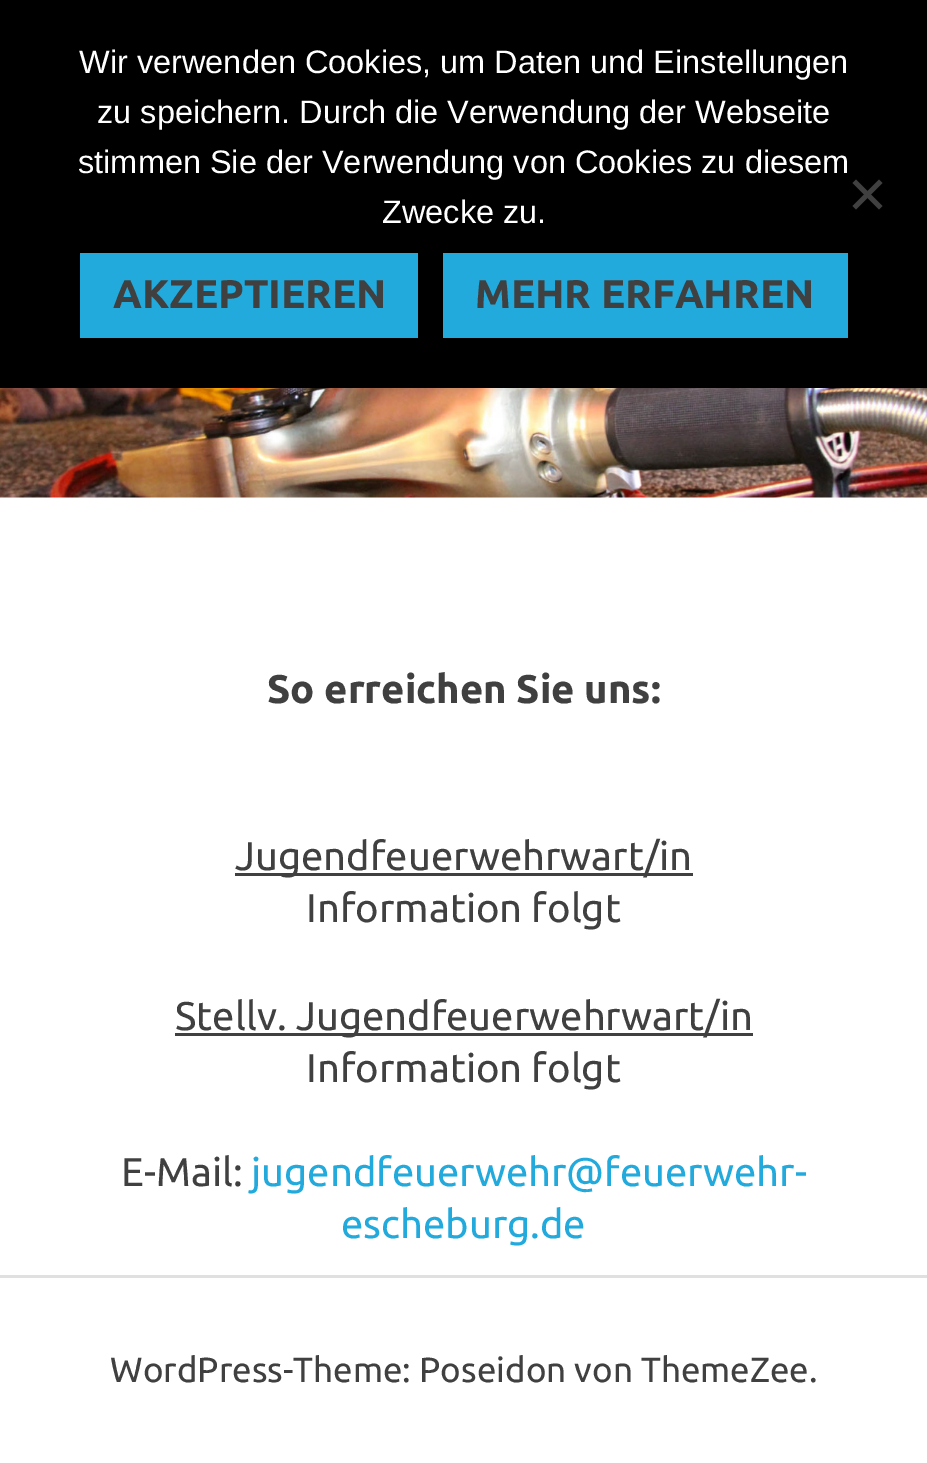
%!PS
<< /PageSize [927 1463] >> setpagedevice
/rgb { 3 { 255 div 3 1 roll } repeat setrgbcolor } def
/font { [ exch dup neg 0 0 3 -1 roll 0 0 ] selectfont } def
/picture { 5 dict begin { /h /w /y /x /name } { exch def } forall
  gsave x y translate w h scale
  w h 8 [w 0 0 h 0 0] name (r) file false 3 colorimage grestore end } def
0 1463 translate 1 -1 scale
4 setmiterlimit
255 255 255 rgb
0 0 927 1463 rectfill
0 0 0 rgb
0 0 927 388 rectfill
64 64 64 rgb
879 179.5 moveto 882.5 183 lineto 856 209.5 lineto 852.5 206 lineto closepath fill
852.5 183 moveto 856 179.5 lineto 882.5 206 lineto 879 209.5 lineto closepath fill
34 170 221 rgb
80 253 338 85 rectfill
443 253 405 85 rectfill
(img/1.rgb) 0 388 927 110 picture
[
  [235 873 458 3 64 64 64]
  [175 1033 578 3 64 64 64]
  [0 1275 927 3 224 224 224]
] { aload pop rgb rectfill } forall
/LiberationSans-Regular 32.5 font
255 255 255 rgb
[
  [(Wir verwenden Cookies, um Daten und Einstellungen) 79 73]
  [(zu speichern. Durch die Verwendung der Webseite) 97 123]
  [(stimmen Sie der Verwendung von Cookies zu diesem) 78 173]
  [(Zwecke zu.) 382 223]
] { aload pop moveto show } forall
/Ubuntu-Bold 40 font
64 64 64 rgb
[
  [(AKZEPTIEREN) 113 308]
  [(MEHR ERFAHREN) 475 308]
  [(So erreichen Sie uns:) 267 703]
] { aload pop moveto show } forall
/Ubuntu-Regular 40 font
[
  [(Jugendfeuerwehrwart/in) 235 870]
  [(Information folgt) 306 922]
  [(Stellv. Jugendfeuerwehrwart/in) 175 1030]
  [(Information folgt) 306 1082]
  [(E-Mail:) 121 1186]
] { aload pop moveto show } forall
34 170 221 rgb
251 1186 moveto (jugendfeuerwehr@feuerwehr-) show
341 1238 moveto (escheburg.de) show
/Ubuntu-Regular 35 font
64 64 64 rgb
110 1382 moveto (WordPress-Theme: Poseidon von ThemeZee.) show
showpage
